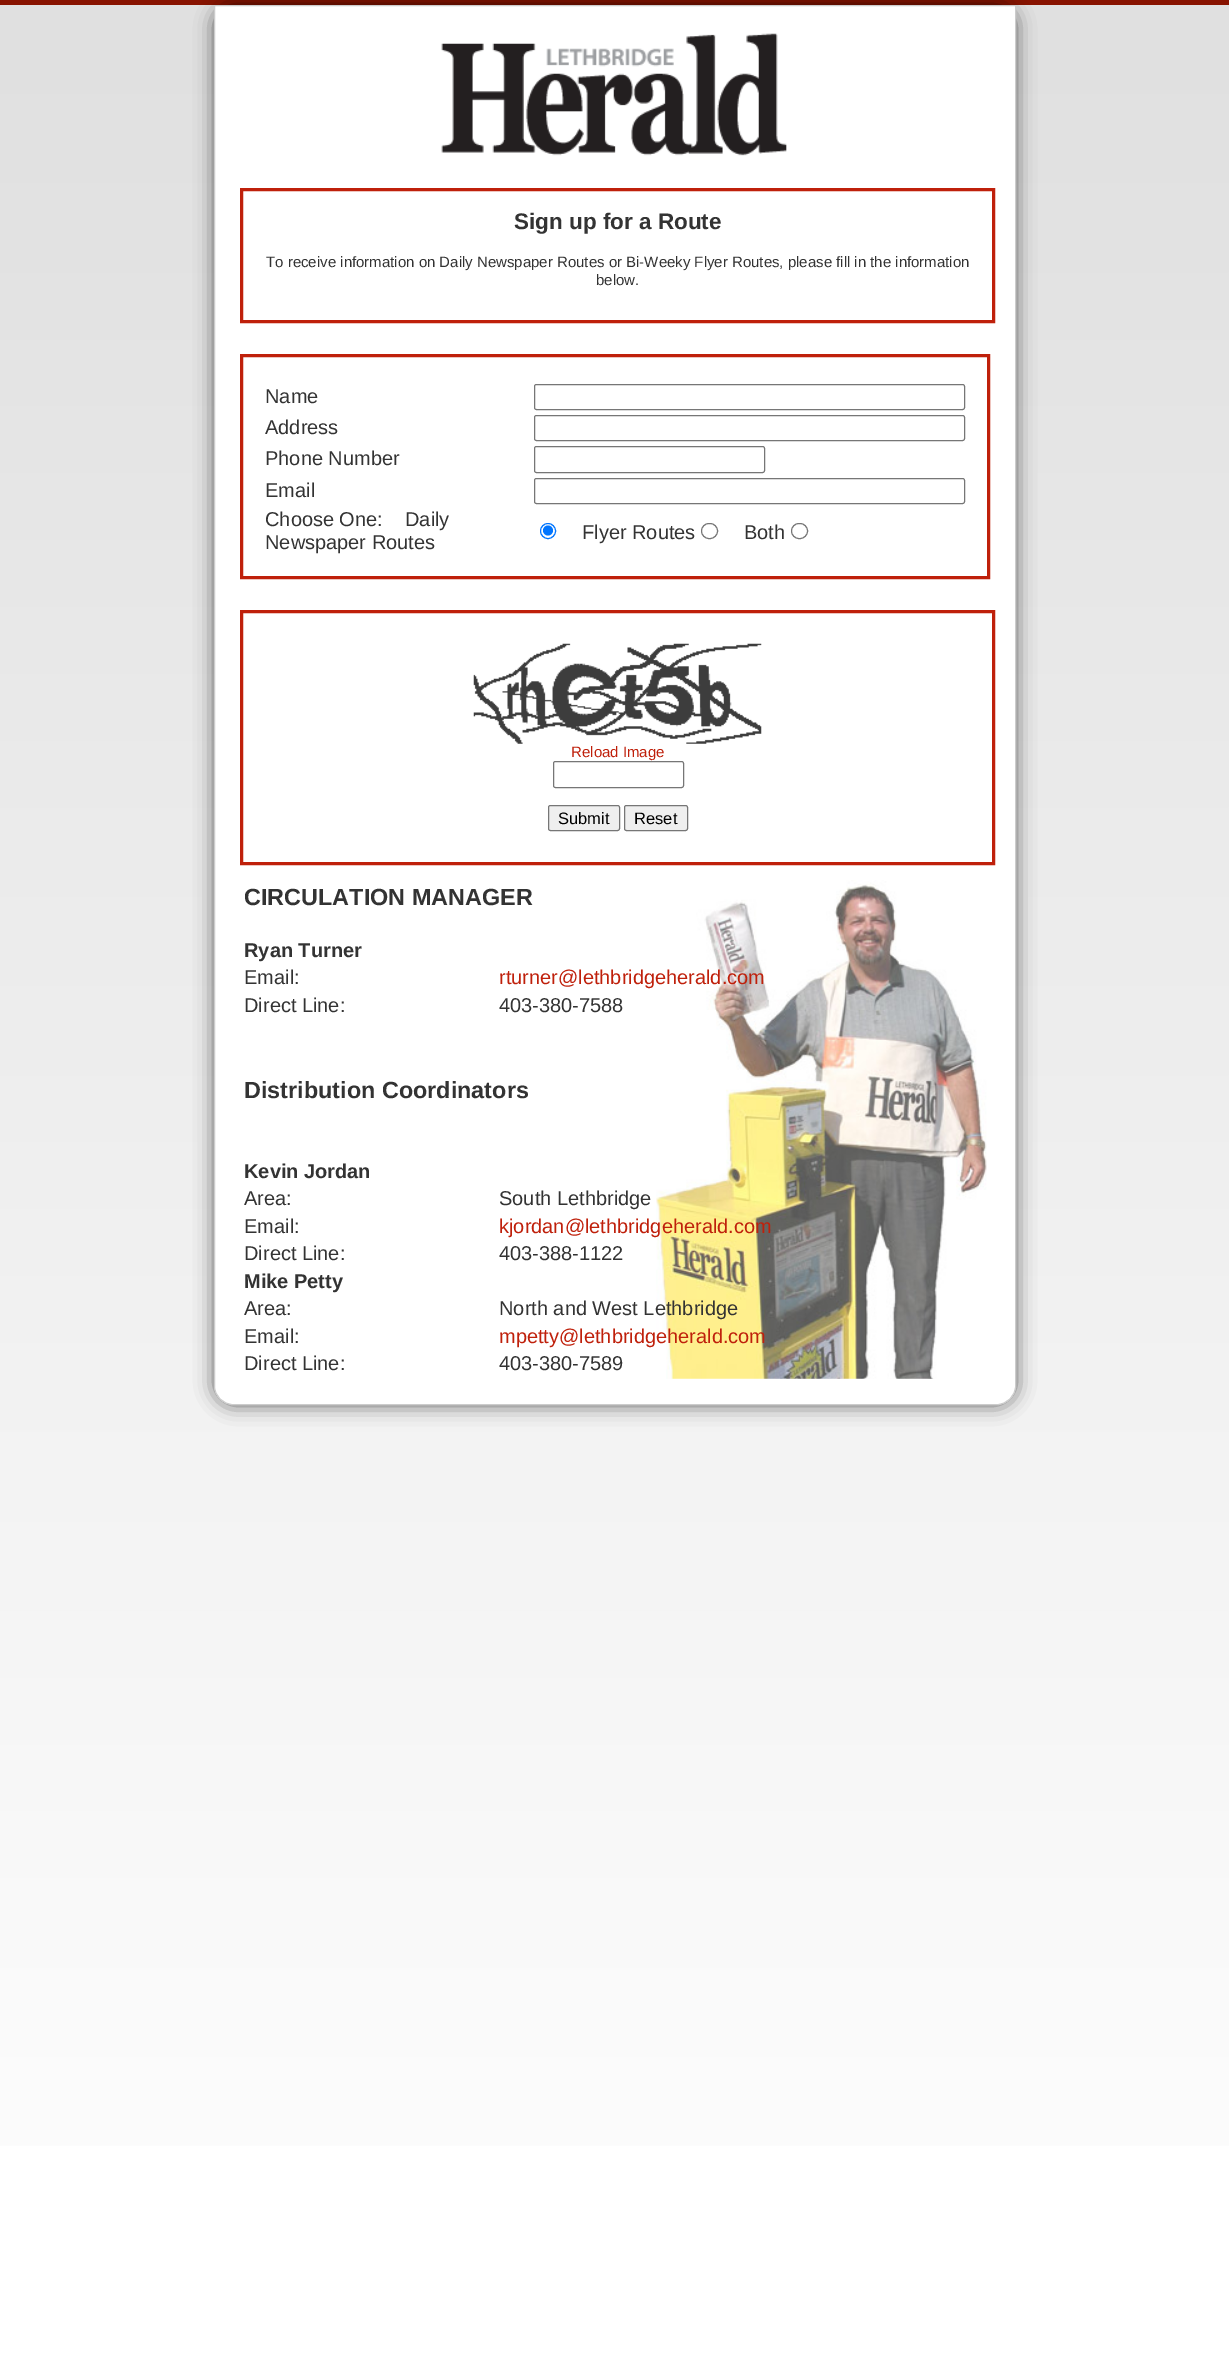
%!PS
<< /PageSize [1229 2364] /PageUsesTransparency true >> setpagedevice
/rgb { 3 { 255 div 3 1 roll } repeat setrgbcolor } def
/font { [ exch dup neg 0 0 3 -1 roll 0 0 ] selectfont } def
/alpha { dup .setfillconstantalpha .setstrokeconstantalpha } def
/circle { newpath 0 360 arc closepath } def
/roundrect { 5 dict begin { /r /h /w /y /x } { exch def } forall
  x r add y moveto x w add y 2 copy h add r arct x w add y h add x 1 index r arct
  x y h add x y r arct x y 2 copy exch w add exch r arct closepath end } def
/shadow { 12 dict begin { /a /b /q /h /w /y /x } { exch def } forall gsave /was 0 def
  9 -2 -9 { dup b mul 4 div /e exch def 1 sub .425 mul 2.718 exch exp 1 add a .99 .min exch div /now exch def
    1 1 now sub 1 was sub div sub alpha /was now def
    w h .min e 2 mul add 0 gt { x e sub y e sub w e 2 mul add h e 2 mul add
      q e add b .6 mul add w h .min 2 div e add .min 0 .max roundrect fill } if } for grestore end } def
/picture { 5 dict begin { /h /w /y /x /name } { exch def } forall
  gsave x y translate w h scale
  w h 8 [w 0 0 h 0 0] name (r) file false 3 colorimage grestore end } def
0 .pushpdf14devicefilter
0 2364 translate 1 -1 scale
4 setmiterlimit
255 255 255 rgb
0 0 1229 2364 rectfill
gsave 0 5 moveto 1229 5 lineto 1229 2146 lineto 0 2146 lineto closepath clip newpath
<< /ShadingType 2 /ColorSpace /DeviceRGB /Coords [0 5 0 2334] /Extend [true true] /Function << /FunctionType 2 /Domain [0 1] /C0 [0.878 0.878 0.878] /C1 [1 1 1] /N 1 >> >> shfill grestore
136 19 0 rgb
0 0 1229 5 rectfill
0 0 0 rgb
214 5 802 1400 19 9.5 0.6 shadow
255 255 255 rgb
214.5 5.5 moveto 1015.5 5.5 lineto 1015.5 1386 lineto 1015.5 1396 1007 1404.5 997 1404.5 curveto 233 1404.5 lineto 223 1404.5 214.5 1396 214.5 1386 curveto closepath gsave fill grestore
204 204 204 rgb
stroke
(img/1.rgb) 441 33 346 123 picture
191 32 11 rgb
3 setlinewidth
241.5 189.5 752 132 rectstroke
241.5 355.5 747 222 rectstroke
118 118 118 rgb
1 setlinewidth
534.5 384.5 430 25 2 roundrect stroke
534.5 415.5 430 25 2 roundrect stroke
534.5 446.5 230 26 2 roundrect stroke
534.5 478.5 430 25 2 roundrect stroke
0 117 255 rgb
548 531 7.5 circle stroke
548 530.5 5 circle fill
118 118 118 rgb
701.5 523.5 16 15 7.5 roundrect stroke
791.5 523.5 16 15 7.5 roundrect stroke
191 32 11 rgb
3 setlinewidth
241.5 611.5 752 252 rectstroke
(img/2.rgb) 473 643 289 101 picture
118 118 118 rgb
1 setlinewidth
553.5 761.5 130 26 2 roundrect stroke
239 239 239 rgb
548.5 805.5 71 25 2 roundrect gsave fill grestore
118 118 118 rgb
stroke
239 239 239 rgb
624.5 805.5 63 25 2 roundrect gsave fill grestore
118 118 118 rgb
stroke
(img/3.rgb) 656 880 331 499 picture
/LiberationSans-Bold 22.5 font
51 51 51 rgb
514 229 moveto (Sign up for a Route) show
/LiberationSans-Regular 15 font
266 267 moveto (To receive information on Daily Newspaper Routes or Bi-Weeky Flyer Routes, please fill in the information) show
596 285 moveto (below.) show
/LiberationSans-Regular 20 font
[
  [(Name) 265 403]
  [(Address) 265 434]
  [(Phone Number) 265 465]
  [(Email) 265 497]
  [(Choose One:    Daily) 265 526]
  [(Newspaper Routes) 265 549]
  [(Flyer Routes) 582 539]
  [(Both) 744 539]
] { aload pop moveto show } forall
/LiberationSans-Regular 15 font
191 32 11 rgb
571 757 moveto (Reload Image) show
/LiberationSans-Regular 16.5 font
0 0 0 rgb
558 824 moveto (Submit) show
634 824 moveto (Reset) show
/LiberationSans-Bold 23.4 font
51 51 51 rgb
244 905 moveto (CIRCULATION MANAGER) show
/LiberationSans-Bold 20 font
244 957 moveto (Ryan Turner) show
/LiberationSans-Regular 20 font
244 984 moveto (Email:) show
191 32 11 rgb
499 984 moveto (rturner@lethbridgeherald.com) show
51 51 51 rgb
244 1012 moveto (Direct Line:) show
499 1012 moveto (403-380-7588) show
/LiberationSans-Bold 23.4 font
244 1098 moveto (Distribution Coordinators) show
/LiberationSans-Bold 20 font
244 1178 moveto (Kevin Jordan) show
/LiberationSans-Regular 20 font
[
  [(Area:) 244 1205]
  [(South Lethbridge) 499 1205]
  [(Email:) 244 1233]
] { aload pop moveto show } forall
191 32 11 rgb
499 1233 moveto (kjordan@lethbridgeherald.com) show
51 51 51 rgb
244 1260 moveto (Direct Line:) show
499 1260 moveto (403-388-1122) show
/LiberationSans-Bold 20 font
244 1288 moveto (Mike Petty) show
/LiberationSans-Regular 20 font
[
  [(Area:) 244 1315]
  [(North and West Lethbridge) 499 1315]
  [(Email:) 244 1343]
] { aload pop moveto show } forall
191 32 11 rgb
499 1343 moveto (mpetty@lethbridgeherald.com) show
51 51 51 rgb
244 1370 moveto (Direct Line:) show
499 1370 moveto (403-380-7589) show
.poppdf14devicefilter showpage
